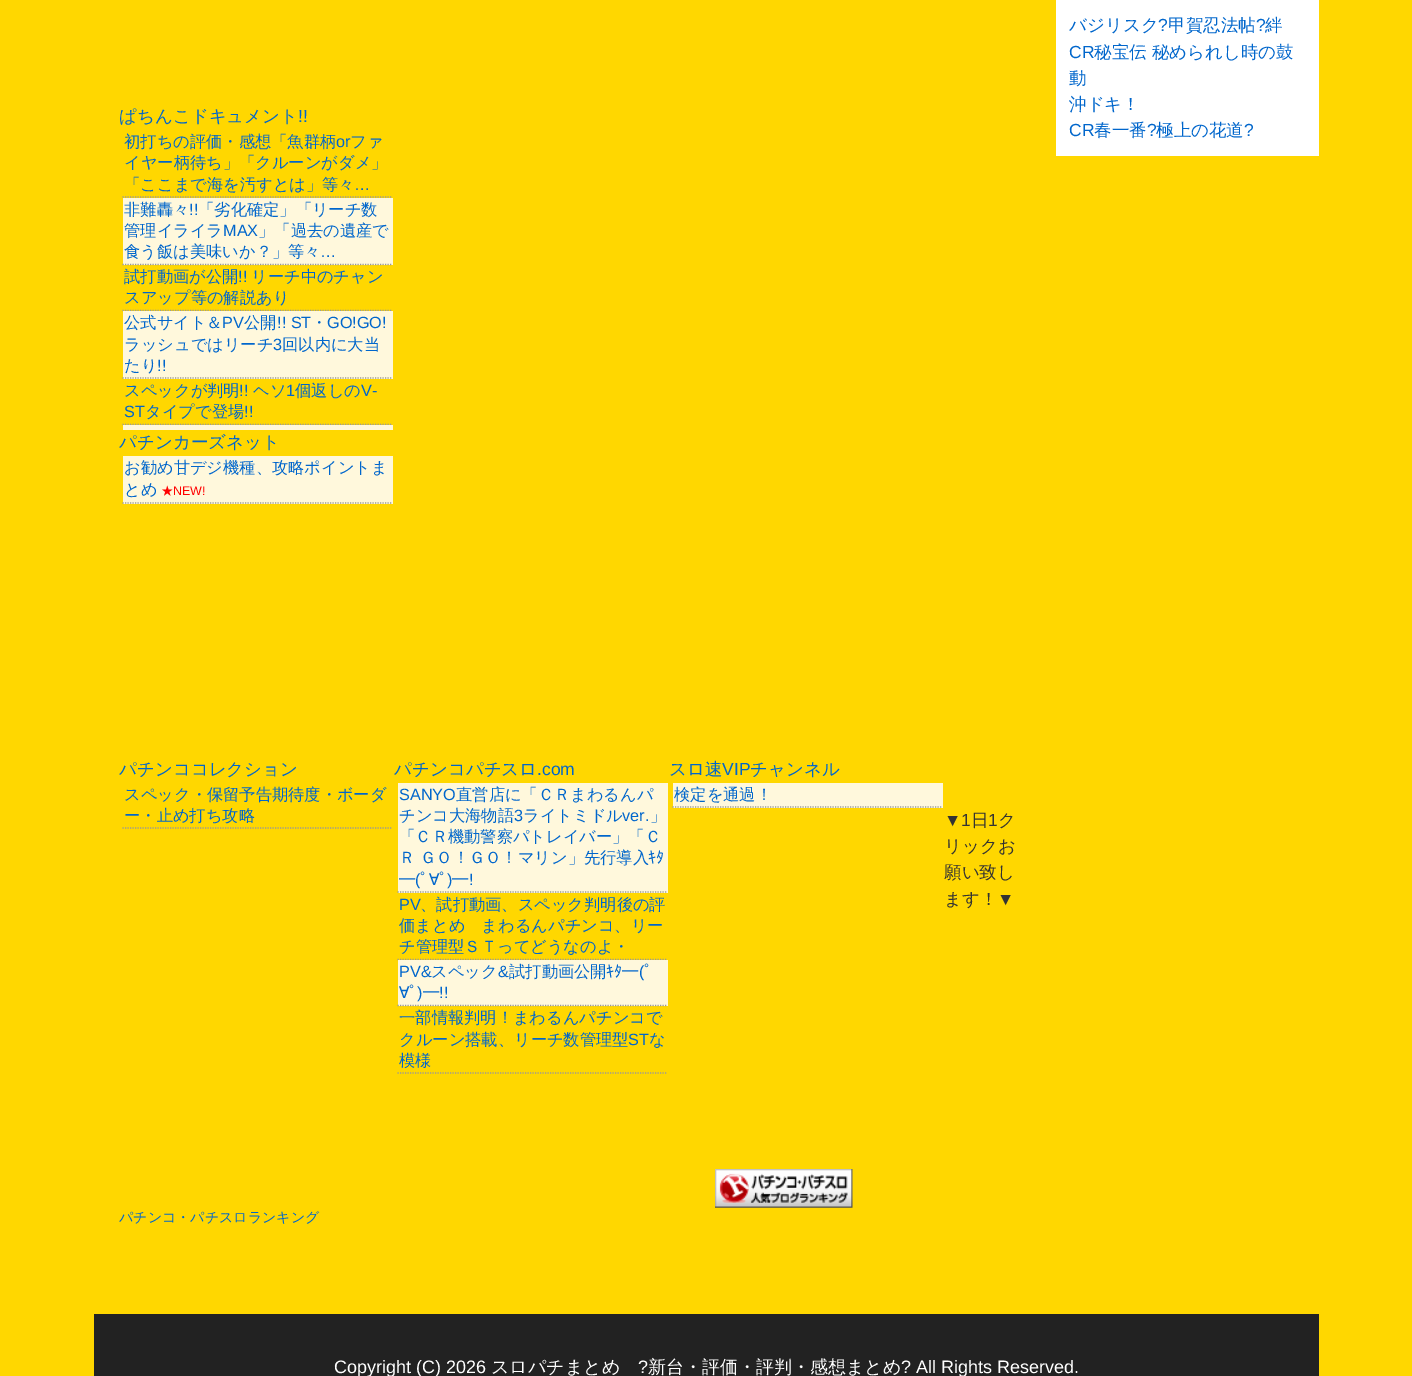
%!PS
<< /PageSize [1412 1376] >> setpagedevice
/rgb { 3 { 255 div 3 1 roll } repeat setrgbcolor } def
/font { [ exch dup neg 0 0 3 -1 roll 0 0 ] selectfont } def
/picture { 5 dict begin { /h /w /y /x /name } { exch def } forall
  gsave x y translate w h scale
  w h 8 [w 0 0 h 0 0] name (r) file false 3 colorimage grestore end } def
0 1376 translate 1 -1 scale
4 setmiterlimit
255 215 0 rgb
0 0 1412 1376 rectfill
255 255 255 rgb
1056 0 263 156 rectfill
153 153 153 rgb
1.2 setlinewidth
[1.25 1.25] 0 setdash
122.5 197 moveto 392.5 197 lineto stroke
255 248 220 rgb
123 198 270 67 rectfill
153 153 153 rgb
122.5 264.5 moveto 392.5 264.5 lineto stroke
122.5 310.5 moveto 392.5 310.5 lineto stroke
255 248 220 rgb
123 311 270 68 rectfill
153 153 153 rgb
122.5 378 moveto 392.5 378 lineto stroke
122.5 424.5 moveto 392.5 424.5 lineto stroke
255 248 220 rgb
123 425 270 5 rectfill
123 456 270 48 rectfill
153 153 153 rgb
122.5 503 moveto 392.5 503 lineto stroke
122.5 828 moveto 392.5 828 lineto stroke
255 248 220 rgb
398 783 270 110 rectfill
153 153 153 rgb
397.5 892 moveto 667.5 892 lineto stroke
397.5 959.5 moveto 667.5 959.5 lineto stroke
255 248 220 rgb
398 960 270 46 rectfill
153 153 153 rgb
397.5 1005.5 moveto 667.5 1005.5 lineto stroke
397.5 1073 moveto 667.5 1073 lineto stroke
255 248 220 rgb
673 783 270 25 rectfill
153 153 153 rgb
672.5 807 moveto 942.5 807 lineto stroke
(img/1.rgb) 715 1169 138 39 picture
34 34 34 rgb
94 1314 1225 62 rectfill
/WenQuanYiZenHei-Medium 17.5 font
0 102 204 rgb
1069 31 moveto (バジリスク) show
/LiberationSans-Regular 17.5 font
1158 31 moveto (?) show
/WenQuanYiZenHei-Medium 17.5 font
1168 31 moveto (甲賀忍法帖) show
/LiberationSans-Regular 17.5 font
1256 31 moveto (?) show
/WenQuanYiZenHei-Medium 17.5 font
1265 31 moveto (絆) show
/LiberationSans-Regular 17.5 font
1069 58 moveto (CR) show
/WenQuanYiZenHei-Medium 17.5 font
[
  [(秘宝伝 秘められし時の鼓) 1094 58]
  [(動) 1069 84]
  [(沖ドキ！) 1069 110]
] { aload pop moveto show } forall
/LiberationSans-Regular 17.5 font
1069 136 moveto (CR) show
/WenQuanYiZenHei-Medium 17.5 font
1094 136 moveto (春一番) show
/LiberationSans-Regular 17.5 font
1147 136 moveto (?) show
/WenQuanYiZenHei-Medium 17.5 font
1156 136 moveto (極上の花道) show
/LiberationSans-Regular 17.5 font
1244 136 moveto (?) show
/WenQuanYiZenHei-Medium 17.5 font
119 122 moveto (ぱちんこドキュメント) show
/LiberationSans-Regular 17.5 font
298 122 moveto (!!) show
/WenQuanYiZenHei-Medium 16.25 font
124 147 moveto (初打ちの評価・感想「魚群柄) show
/LiberationSans-Regular 16.25 font
336 147 moveto (or) show
/WenQuanYiZenHei-Medium 16.25 font
[
  [(ファ) 350 147]
  [(イヤー柄待ち」「クルーンがダメ」) 124 168]
  [(「ここまで海を汚すとは」等々) 124 190]
] { aload pop moveto show } forall
/LiberationSans-Regular 16.25 font
354 190 moveto (…) show
/WenQuanYiZenHei-Medium 16.25 font
124 215 moveto (非難轟々) show
/LiberationSans-Regular 16.25 font
189 215 moveto (!!) show
/WenQuanYiZenHei-Medium 16.25 font
198 215 moveto (「劣化確定」「リーチ数) show
124 236 moveto (管理イライラ) show
/LiberationSans-Regular 16.25 font
223 236 moveto (MAX) show
/WenQuanYiZenHei-Medium 16.25 font
258 236 moveto (」「過去の遺産で) show
124 257 moveto (食う飯は美味いか？」等々) show
/LiberationSans-Regular 16.25 font
320 257 moveto (…) show
/WenQuanYiZenHei-Medium 16.25 font
124 282 moveto (試打動画が公開) show
/LiberationSans-Regular 16.25 font
238 282 moveto (!!) show
/WenQuanYiZenHei-Medium 16.25 font
[
  [(リーチ中のチャン) 251 282]
  [(スアップ等の解説あり) 124 303]
  [(公式サイト＆) 124 328]
] { aload pop moveto show } forall
/LiberationSans-Regular 16.25 font
222 328 moveto (PV) show
/WenQuanYiZenHei-Medium 16.25 font
244 328 moveto (公開) show
/LiberationSans-Regular 16.25 font
277 328 moveto (!! ST) show
/WenQuanYiZenHei-Medium 16.25 font
311 328 moveto (・) show
/LiberationSans-Regular 16.25 font
327 328 moveto (GO!GO!) show
/WenQuanYiZenHei-Medium 16.25 font
124 350 moveto (ラッシュではリーチ) show
/LiberationSans-Regular 16.25 font
273 350 moveto (3) show
/WenQuanYiZenHei-Medium 16.25 font
282 350 moveto (回以内に大当) show
124 371 moveto (たり) show
/LiberationSans-Regular 16.25 font
157 371 moveto (!!) show
/WenQuanYiZenHei-Medium 16.25 font
124 396 moveto (スペックが判明) show
/LiberationSans-Regular 16.25 font
239 396 moveto (!!) show
/WenQuanYiZenHei-Medium 16.25 font
253 396 moveto (ヘソ) show
/LiberationSans-Regular 16.25 font
286 396 moveto (1) show
/WenQuanYiZenHei-Medium 16.25 font
295 396 moveto (個返しの) show
/LiberationSans-Regular 16.25 font
361 396 moveto (V-) show
124 417 moveto (ST) show
/WenQuanYiZenHei-Medium 16.25 font
145 417 moveto (タイプで登場) show
/LiberationSans-Regular 16.25 font
244 417 moveto (!!) show
/WenQuanYiZenHei-Medium 17.5 font
119 448 moveto (パチンカーズネット) show
/WenQuanYiZenHei-Medium 16.25 font
124 473 moveto (お勧め甘デジ機種、攻略ポイントま) show
124 495 moveto (とめ) show
/WenQuanYiZenHei-Medium 12.5 font
255 0 0 rgb
161 495 moveto (★) show
/LiberationSans-Regular 12.5 font
173 495 moveto (NEW!) show
/WenQuanYiZenHei-Medium 17.5 font
0 102 204 rgb
119 775 moveto (パチンココレクション) show
/WenQuanYiZenHei-Medium 16.25 font
124 800 moveto (スペック・保留予告期待度・ボーダ) show
124 821 moveto (ー・止め打ち攻略) show
/WenQuanYiZenHei-Medium 17.5 font
394 775 moveto (パチンコパチスロ) show
/LiberationSans-Regular 17.5 font
537 775 moveto (.com) show
/LiberationSans-Regular 16.25 font
399 800 moveto (SANYO) show
/WenQuanYiZenHei-Medium 16.25 font
456 800 moveto (直営店に「ＣＲまわるんパ) show
399 821 moveto (チンコ大海物語) show
/LiberationSans-Regular 16.25 font
514 821 moveto (3) show
/WenQuanYiZenHei-Medium 16.25 font
523 821 moveto (ライトミドル) show
/LiberationSans-Regular 16.25 font
622 821 moveto (ver.) show
/WenQuanYiZenHei-Medium 16.25 font
[
  [(」) 650 821]
  [(「ＣＲ機動警察パトレイバー」「Ｃ) 399 842]
  [(Ｒ ＧＯ！ＧＯ！マリン」先行導入) 399 863]
] { aload pop moveto show } forall
/IPAPGothic-Regular 16.25 font
648 863 moveto (ｷﾀ) show
/WenQuanYiZenHei-Medium 16.25 font
399 885 moveto (━) show
/LiberationSans-Regular 16.25 font
415 885 moveto (\() show
/IPAPGothic-Regular 16.25 font
420 885 moveto (ﾟ) show
/WenQuanYiZenHei-Medium 16.25 font
429 885 moveto (∀) show
/IPAPGothic-Regular 16.25 font
439 885 moveto (ﾟ) show
/LiberationSans-Regular 16.25 font
447 885 moveto (\)) show
/WenQuanYiZenHei-Medium 16.25 font
452 885 moveto (━) show
/LiberationSans-Regular 16.25 font
469 885 moveto (!) show
399 910 moveto (PV) show
/WenQuanYiZenHei-Medium 16.25 font
[
  [(、試打動画、スペック判明後の評) 420 910]
  [(価まとめ　まわるんパチンコ、リー) 399 931]
  [(チ管理型ＳＴってどうなのよ・) 399 952]
] { aload pop moveto show } forall
/LiberationSans-Regular 16.25 font
399 977 moveto (PV&) show
/WenQuanYiZenHei-Medium 16.25 font
431 977 moveto (スペック) show
/LiberationSans-Regular 16.25 font
498 977 moveto (&) show
/WenQuanYiZenHei-Medium 16.25 font
509 977 moveto (試打動画公開) show
/IPAPGothic-Regular 16.25 font
606 977 moveto (ｷﾀ) show
/WenQuanYiZenHei-Medium 16.25 font
622 977 moveto (━) show
/LiberationSans-Regular 16.25 font
639 977 moveto (\() show
/IPAPGothic-Regular 16.25 font
644 977 moveto (ﾟ) show
/WenQuanYiZenHei-Medium 16.25 font
399 998 moveto (∀) show
/IPAPGothic-Regular 16.25 font
409 998 moveto (ﾟ) show
/LiberationSans-Regular 16.25 font
417 998 moveto (\)) show
/WenQuanYiZenHei-Medium 16.25 font
423 998 moveto (━) show
/LiberationSans-Regular 16.25 font
439 998 moveto (!!) show
/WenQuanYiZenHei-Medium 16.25 font
399 1023 moveto (一部情報判明！まわるんパチンコで) show
399 1045 moveto (クルーン搭載、リーチ数管理型) show
/LiberationSans-Regular 16.25 font
628 1045 moveto (ST) show
/WenQuanYiZenHei-Medium 16.25 font
649 1045 moveto (な) show
399 1066 moveto (模様) show
/WenQuanYiZenHei-Medium 17.5 font
669 775 moveto (スロ速) show
/LiberationSans-Regular 17.5 font
722 775 moveto (VIP) show
/WenQuanYiZenHei-Medium 17.5 font
750 775 moveto (チャンネル) show
/WenQuanYiZenHei-Medium 16.25 font
674 800 moveto (検定を通過！) show
/LiberationSans-Regular 17.5 font
51 51 51 rgb
944 826 moveto (▼1) show
/WenQuanYiZenHei-Medium 17.5 font
971 826 moveto (日) show
/LiberationSans-Regular 17.5 font
988 826 moveto (1) show
/WenQuanYiZenHei-Medium 17.5 font
[
  [(ク) 998 826]
  [(リックお) 944 852]
  [(願い致し) 944 878]
  [(ます！) 944 905]
] { aload pop moveto show } forall
/LiberationSans-Regular 17.5 font
997 905 moveto (▼) show
/WenQuanYiZenHei-Medium 14 font
0 102 204 rgb
119 1222 moveto (パチンコ・パチスロランキング) show
/LiberationSans-Regular 18 font
255 255 255 rgb
334 1373 moveto (Copyright \(C\) 2026) show
/WenQuanYiZenHei-Medium 18 font
491 1373 moveto (スロパチまとめ) show
/LiberationSans-Regular 18 font
638 1373 moveto (?) show
/WenQuanYiZenHei-Medium 18 font
648 1373 moveto (新台・評価・評判・感想まとめ) show
/LiberationSans-Regular 18 font
901 1373 moveto (? All Rights Reserved.) show
showpage
